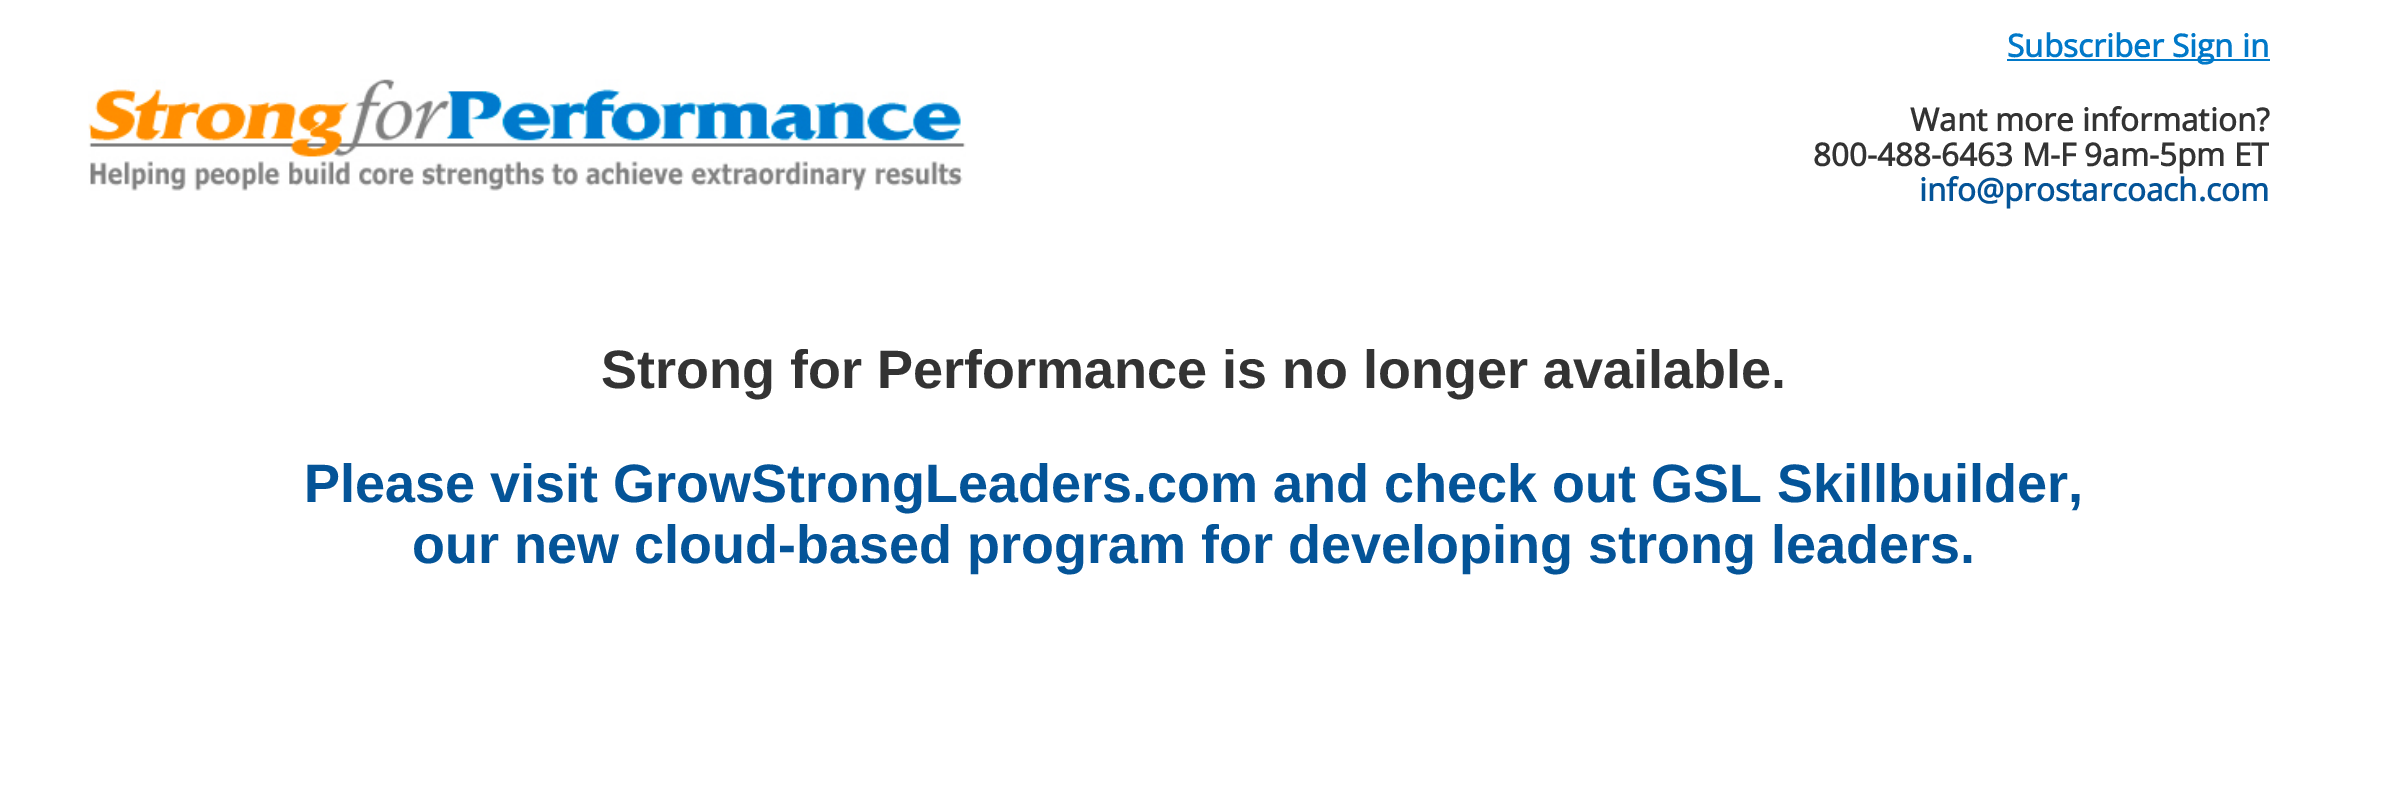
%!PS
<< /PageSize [2387 809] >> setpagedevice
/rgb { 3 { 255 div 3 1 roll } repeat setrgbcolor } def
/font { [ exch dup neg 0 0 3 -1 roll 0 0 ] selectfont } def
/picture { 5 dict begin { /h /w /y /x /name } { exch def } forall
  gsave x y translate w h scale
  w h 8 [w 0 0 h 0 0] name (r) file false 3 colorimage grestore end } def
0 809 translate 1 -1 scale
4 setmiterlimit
255 255 255 rgb
0 0 2387 809 rectfill
(img/1.rgb) 88 79 878 112 picture
1 121 201 rgb
2007 59 263 2 rectfill
/OpenSans-Bold 31.5 font
2007 57 moveto (Subscriber Sign in) show
51 51 51 rgb
1910 131 moveto (Want more information?) show
1813 166 moveto (800-488-6463 M-F 9am-5pm ET) show
4 84 152 rgb
1919 201 moveto (info@prostarcoach.com) show
/LiberationSans-Bold 54 font
51 51 51 rgb
601 388 moveto (Strong for Performance is no longer available.) show
4 84 152 rgb
[
  [(Please visit) 304 502]
  [(GrowStrongLeaders.com) 613 502]
  [(and check out GSL Skillbuilder,) 1273 502]
  [(our new cloud-based program for developing strong leaders.) 412 563]
] { aload pop moveto show } forall
showpage
